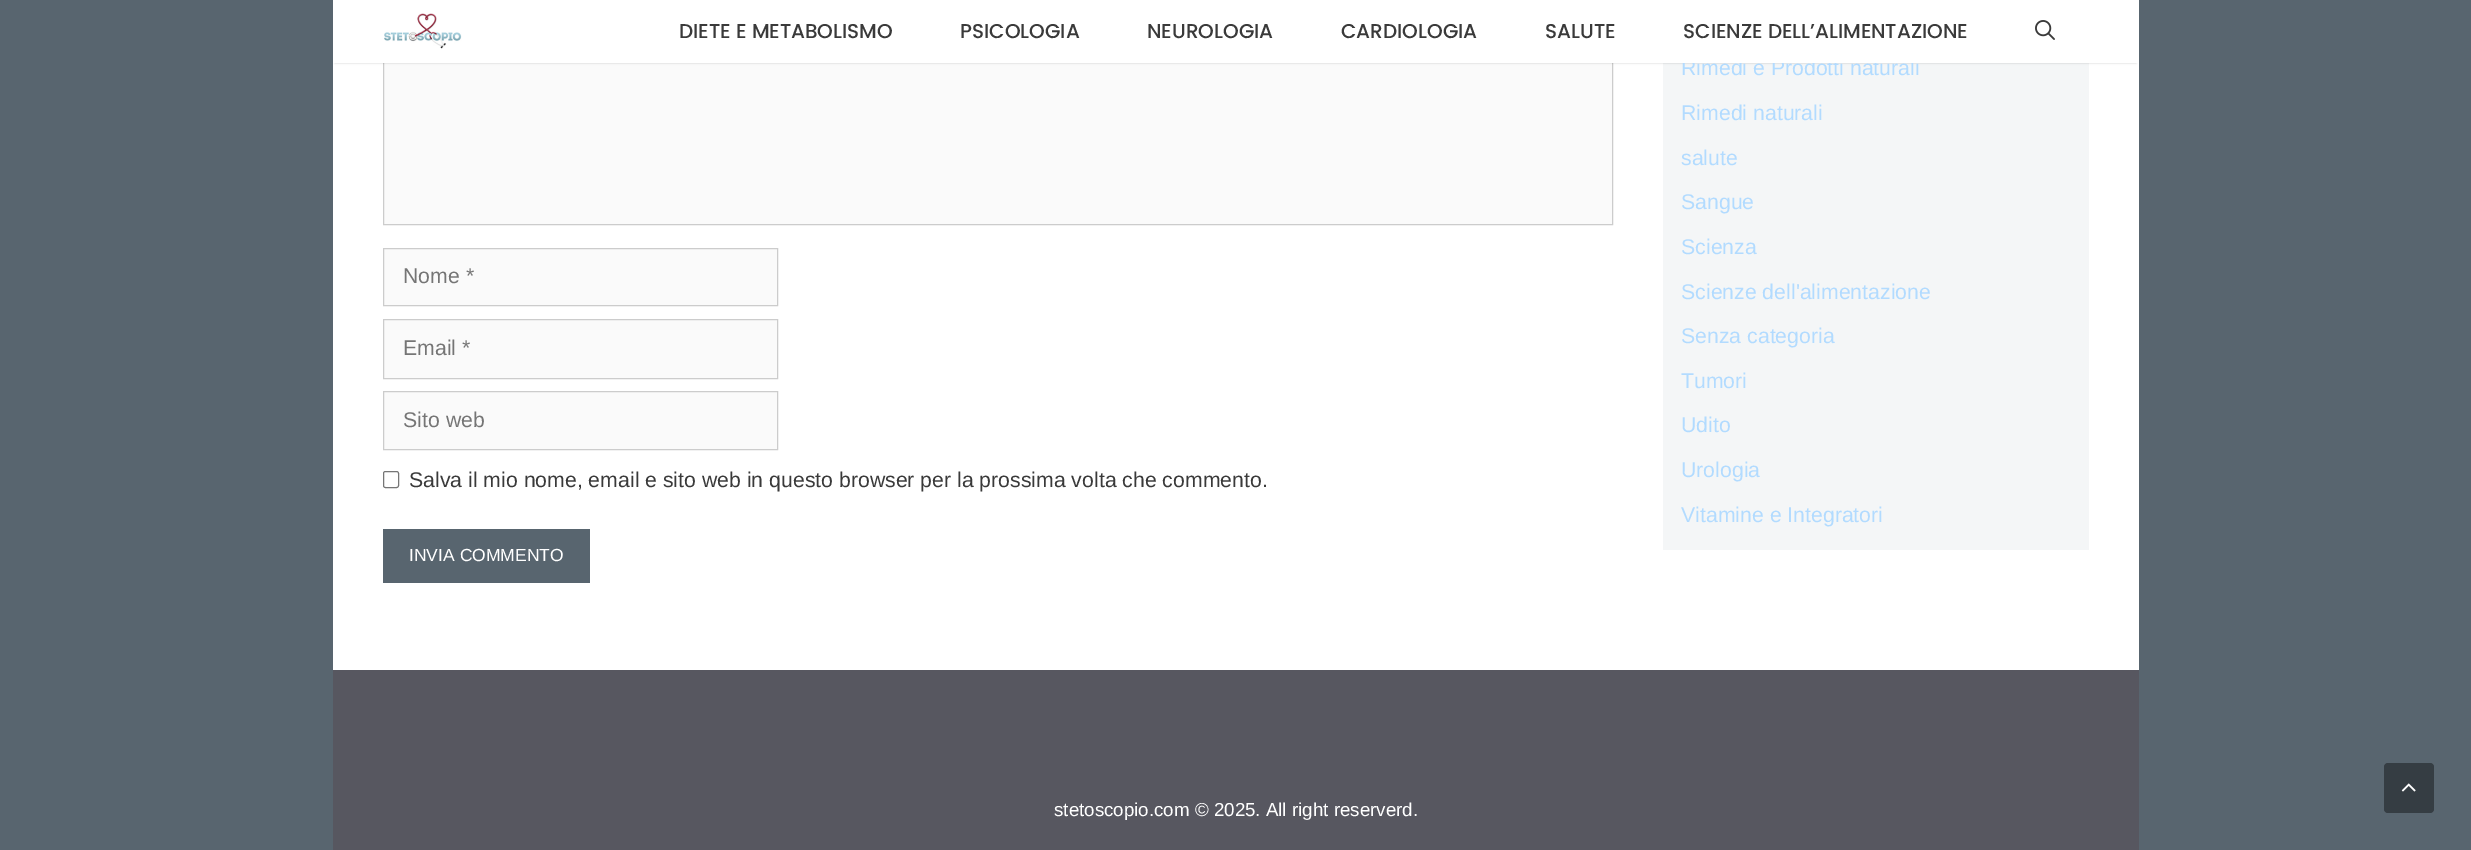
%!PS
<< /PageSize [2471 850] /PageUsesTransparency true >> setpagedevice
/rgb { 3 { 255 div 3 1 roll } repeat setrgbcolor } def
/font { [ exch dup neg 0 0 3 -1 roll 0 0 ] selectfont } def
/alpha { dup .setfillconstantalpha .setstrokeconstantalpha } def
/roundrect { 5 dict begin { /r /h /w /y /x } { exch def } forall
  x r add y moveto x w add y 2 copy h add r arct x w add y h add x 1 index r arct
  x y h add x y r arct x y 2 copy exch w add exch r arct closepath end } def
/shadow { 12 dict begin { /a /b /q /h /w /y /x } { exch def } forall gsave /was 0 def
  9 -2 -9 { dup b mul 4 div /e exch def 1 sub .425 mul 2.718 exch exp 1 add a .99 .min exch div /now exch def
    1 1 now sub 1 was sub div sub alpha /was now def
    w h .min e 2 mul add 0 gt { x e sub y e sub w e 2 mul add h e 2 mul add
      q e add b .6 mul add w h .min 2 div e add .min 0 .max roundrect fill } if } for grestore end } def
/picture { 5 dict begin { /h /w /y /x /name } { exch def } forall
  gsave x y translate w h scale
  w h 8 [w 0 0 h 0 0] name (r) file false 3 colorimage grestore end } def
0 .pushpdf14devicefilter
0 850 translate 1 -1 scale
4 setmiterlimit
88 101 111 rgb
0 0 2471 850 rectfill
255 255 255 rgb
333 63 1806 607 rectfill
250 250 250 rgb
384 63 1228 161 rectfill
204 204 204 rgb
383.5 -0.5 1229 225 rectstroke
244 246 247 rgb
1663 63 426 487 rectfill
0 0 0 rgb
335 5 1801 58 0 1 0.2 shadow
250 250 250 rgb
383.5 248.5 moveto 777.5 248.5 lineto 777.5 305.5 lineto 383.5 305.5 lineto closepath gsave fill grestore
204 204 204 rgb
stroke
250 250 250 rgb
383.5 319.5 moveto 777.5 319.5 lineto 777.5 378.5 lineto 383.5 378.5 lineto closepath gsave fill grestore
204 204 204 rgb
stroke
250 250 250 rgb
383.5 391.5 moveto 777.5 391.5 lineto 777.5 449.5 lineto 383.5 449.5 lineto closepath gsave fill grestore
204 204 204 rgb
stroke
118 118 118 rgb
383.5 471.5 15 16 2 roundrect stroke
88 101 111 rgb
383 529 207 54 rectfill
87 87 96 rgb
333 670 1806 180 rectfill
53 61 67 rgb
2384 763 50 50 4 roundrect fill
(img/3.rgb) 2401 783 15 9 picture
/LiberationSans-Regular 21.25 font
117 117 117 rgb
[
  [(Nome *) 403 283]
  [(Email *) 403 355]
  [(Sito web) 403 427]
] { aload pop moveto show } forall
58 58 58 rgb
409 487 moveto (Salva il mio nome, email e sito web in questo browser per la prossima volta che commento.) show
/LiberationSans-Regular 17.5 font
255 255 255 rgb
409 561 moveto (INVIA COMMENTO) show
/LiberationSans-Regular 21.25 font
178 219 255 rgb
1681 75 moveto (Rimedi e Prodotti naturali) show
255 255 255 rgb
333 0 1806 63 rectfill
(img/2.rgb) 2035 20 20 20 picture
/Poppins-Medium 20 font
58 58 58 rgb
[
  [(SCIENZE DELL’ALIMENTAZIONE) 1683 38]
  [(SALUTE) 1545 38]
  [(CARDIOLOGIA) 1341 38]
  [(NEUROLOGIA) 1147 38]
  [(PSICOLOGIA) 960 38]
  [(DIETE E METABOLISMO) 679 38]
] { aload pop moveto show } forall
(img/1.rgb) 384 13 78 36 picture
/LiberationSans-Regular 21.25 font
178 219 255 rgb
[
  [(Rimedi naturali) 1681 120]
  [(salute) 1681 165]
  [(Sangue) 1681 209]
  [(Scienza) 1681 254]
  [(Scienze dell'alimentazione) 1681 299]
  [(Senza categoria) 1681 343]
  [(Tumori) 1681 388]
  [(Udito) 1681 432]
  [(Urologia) 1681 477]
  [(Vitamine e Integratori) 1681 522]
] { aload pop moveto show } forall
/LiberationSans-Regular 18.75 font
255 255 255 rgb
1054 816 moveto (stetoscopio.com © 2025. All right reserverd.) show
.poppdf14devicefilter showpage
